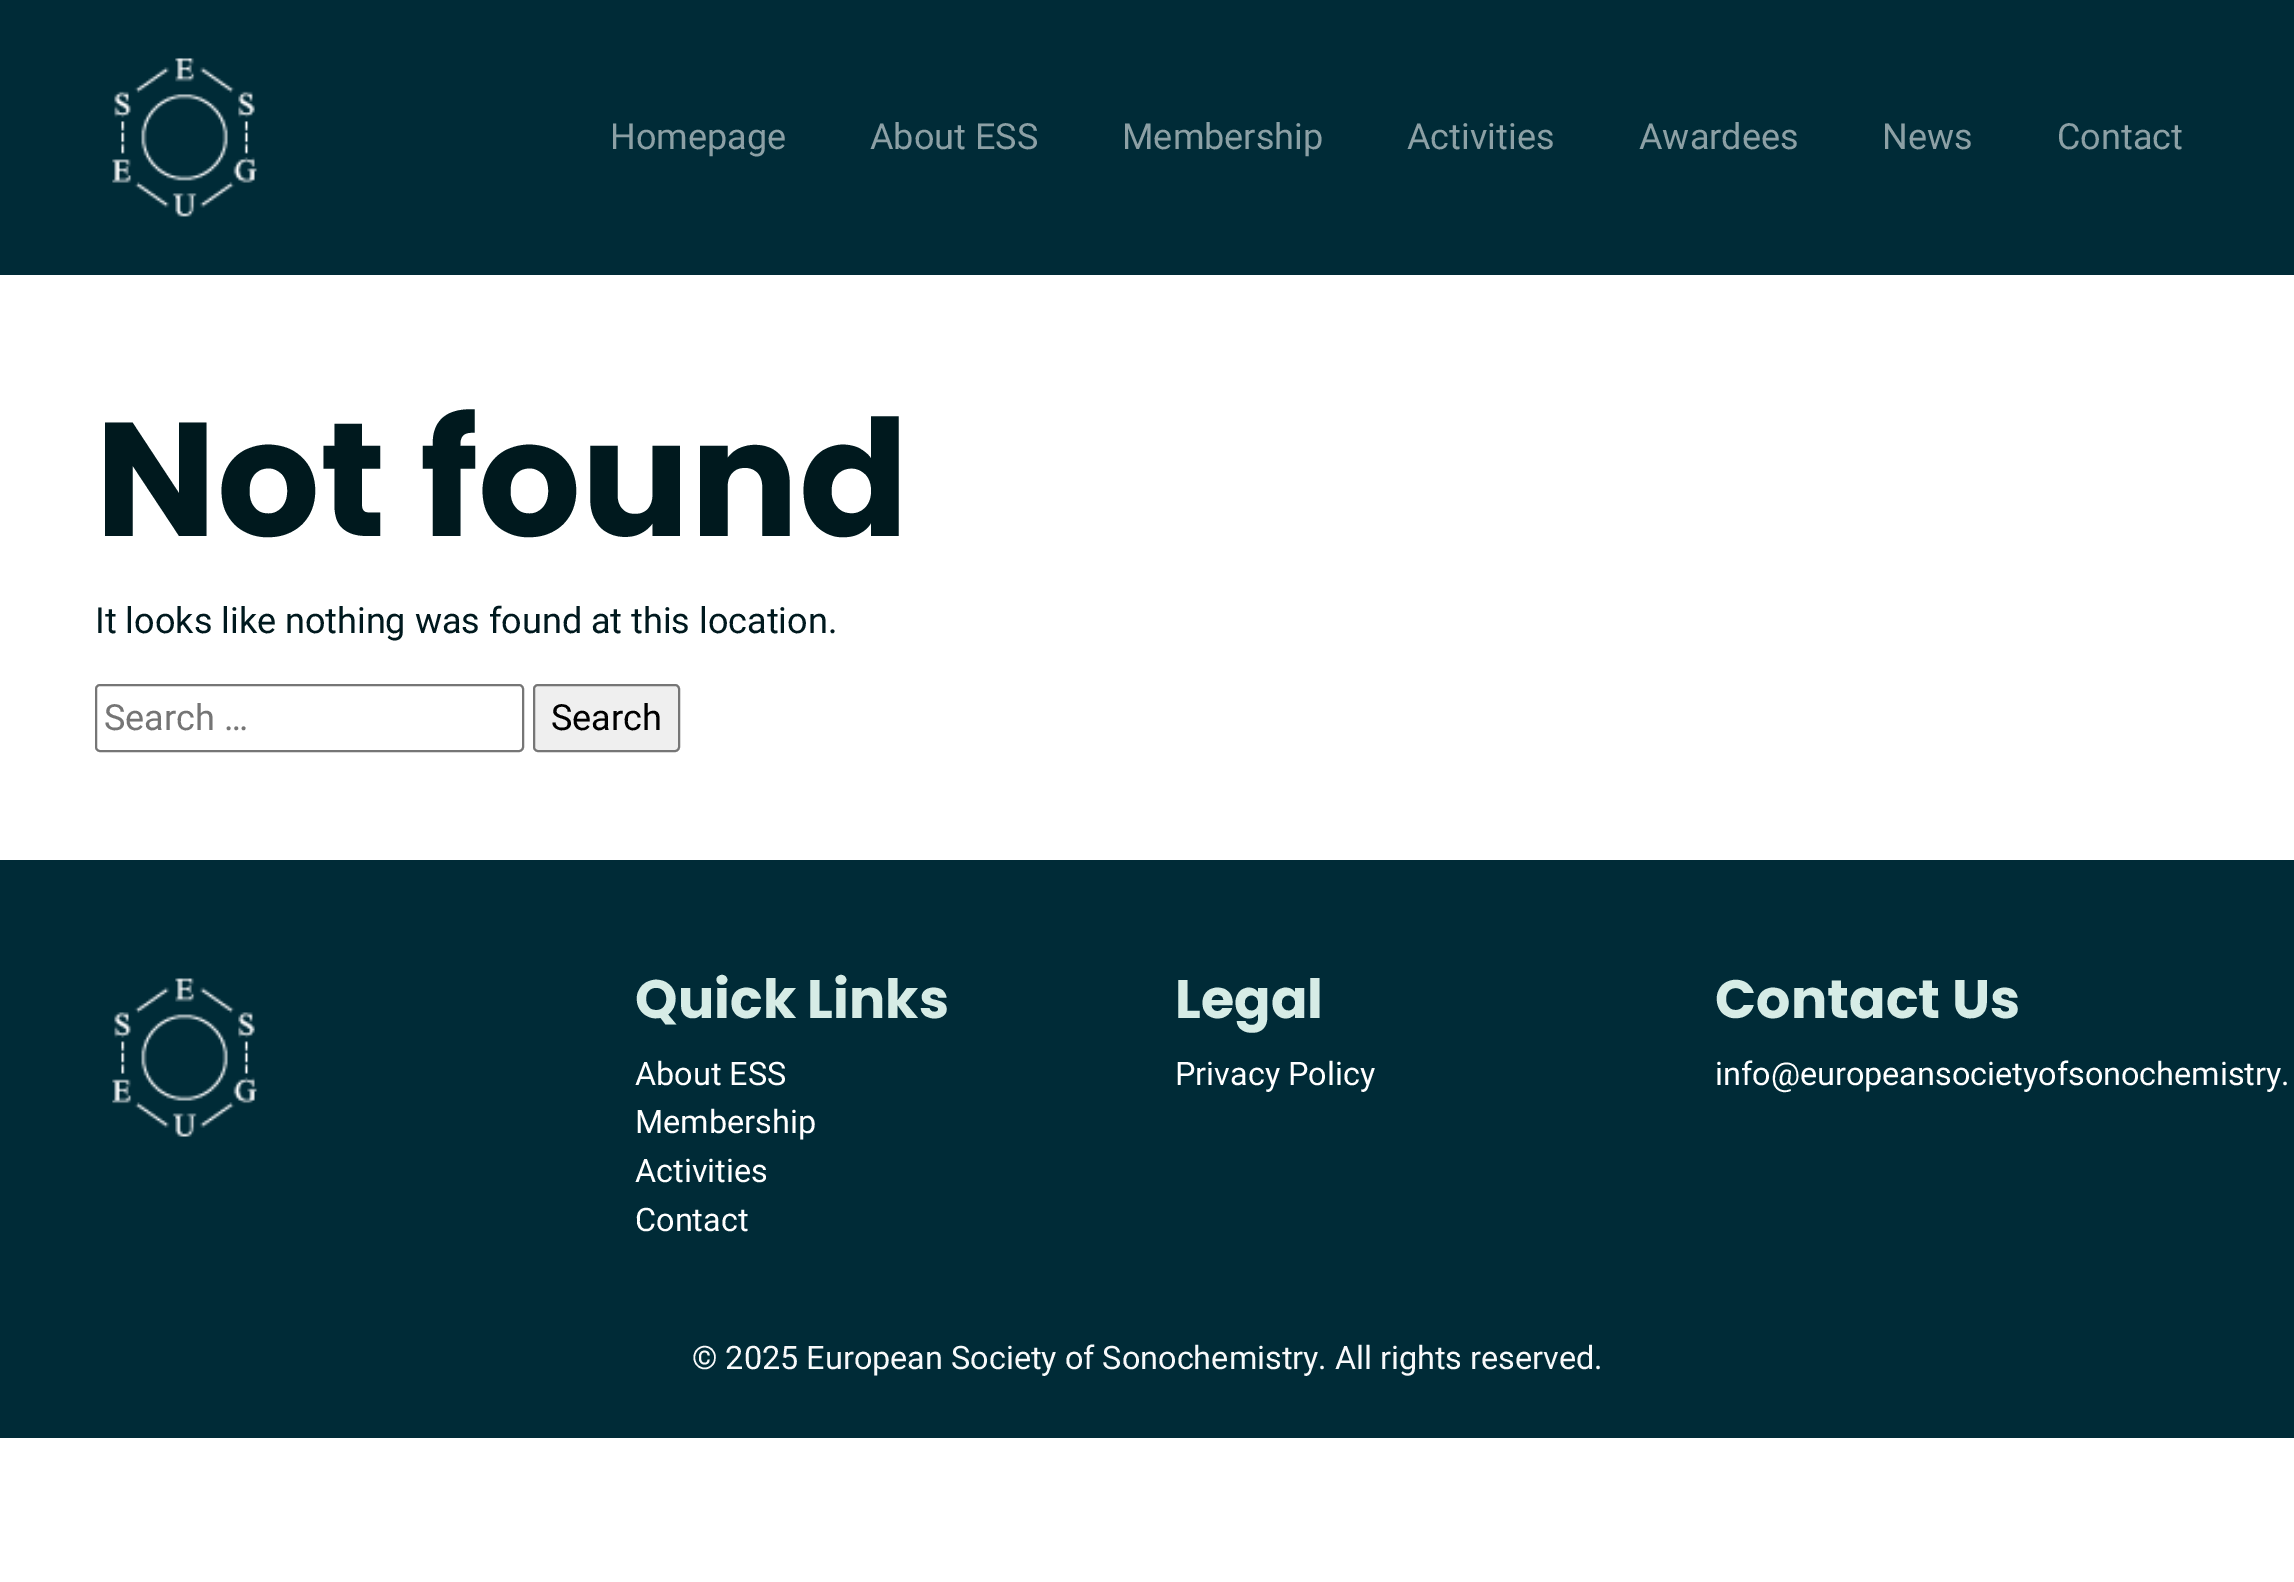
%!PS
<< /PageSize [2294 1582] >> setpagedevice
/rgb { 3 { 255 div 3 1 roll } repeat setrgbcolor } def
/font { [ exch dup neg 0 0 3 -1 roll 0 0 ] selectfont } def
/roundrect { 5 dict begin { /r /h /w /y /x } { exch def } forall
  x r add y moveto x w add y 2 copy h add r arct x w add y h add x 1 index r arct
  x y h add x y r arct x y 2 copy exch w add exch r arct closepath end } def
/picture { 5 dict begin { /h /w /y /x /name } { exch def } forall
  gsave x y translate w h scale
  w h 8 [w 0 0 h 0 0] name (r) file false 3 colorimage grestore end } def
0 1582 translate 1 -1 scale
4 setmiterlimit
255 255 255 rgb
0 0 2294 1582 rectfill
0 43 55 rgb
0 0 2294 275 rectfill
(img/1.rgb) 112 58 146 159 picture
118 118 118 rgb
2 setlinewidth
96 685 427 66 4 roundrect stroke
239 239 239 rgb
534 685 145 66 4 roundrect gsave fill grestore
118 118 118 rgb
stroke
0 43 55 rgb
0 860 2294 578 rectfill
(img/2.rgb) 112 978 146 159 picture
/Roboto-Regular 36 font
140 160 165 rgb
[
  [(Homepage) 610 149]
  [(About ESS) 870 149]
  [(Membership) 1122 149]
  [(Activities) 1407 149]
  [(Awardees) 1639 149]
  [(News) 1882 149]
  [(Contact) 2057 149]
] { aload pop moveto show } forall
/Poppins-Bold 161.75 font
0 25 30 rgb
95 536 moveto (Not found) show
/Roboto-Regular 36 font
95 633 moveto (It looks like nothing was found at this location.) show
117 117 117 rgb
104 730 moveto (Search …) show
0 0 0 rgb
551 730 moveto (Search) show
/Poppins-Bold 54 font
214 236 230 rgb
635 1018 moveto (Quick Links) show
/Roboto-Regular 32.4 font
255 255 255 rgb
[
  [(About ESS) 635 1085]
  [(Membership) 635 1133]
  [(Activities) 635 1182]
  [(Contact) 635 1231]
] { aload pop moveto show } forall
/Poppins-Bold 54 font
214 236 230 rgb
1175 1018 moveto (Legal) show
/Roboto-Regular 32.4 font
255 255 255 rgb
1175 1085 moveto (Privacy Policy) show
/Poppins-Bold 54 font
214 236 230 rgb
1715 1018 moveto (Contact Us) show
/Roboto-Regular 32.4 font
255 255 255 rgb
1715 1085 moveto (info@europeansocietyofsonochemistry.) show
248 249 250 rgb
692 1369 moveto (© 2025 European Society of Sonochemistry. All rights reserved.) show
showpage
